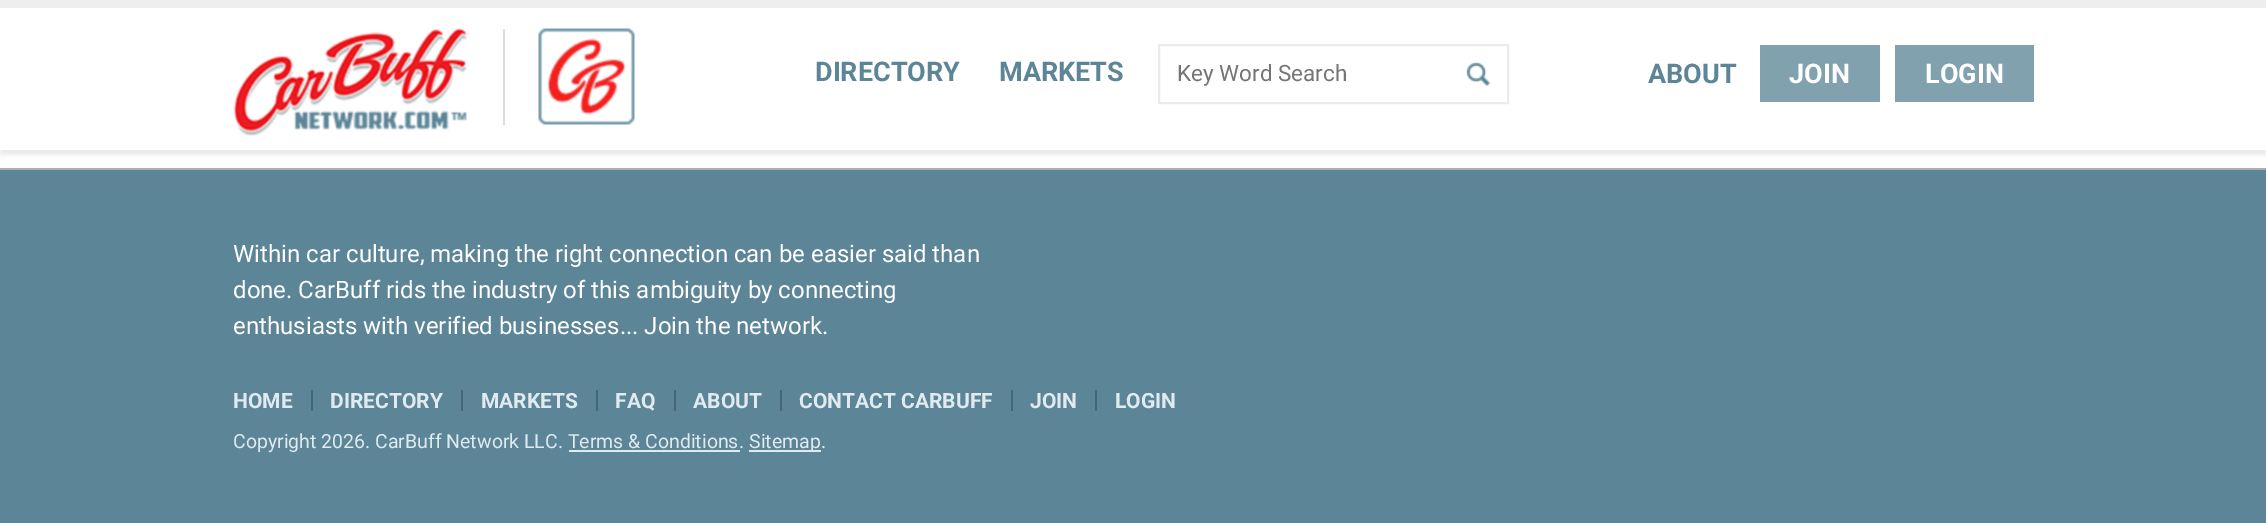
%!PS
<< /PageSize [2266 523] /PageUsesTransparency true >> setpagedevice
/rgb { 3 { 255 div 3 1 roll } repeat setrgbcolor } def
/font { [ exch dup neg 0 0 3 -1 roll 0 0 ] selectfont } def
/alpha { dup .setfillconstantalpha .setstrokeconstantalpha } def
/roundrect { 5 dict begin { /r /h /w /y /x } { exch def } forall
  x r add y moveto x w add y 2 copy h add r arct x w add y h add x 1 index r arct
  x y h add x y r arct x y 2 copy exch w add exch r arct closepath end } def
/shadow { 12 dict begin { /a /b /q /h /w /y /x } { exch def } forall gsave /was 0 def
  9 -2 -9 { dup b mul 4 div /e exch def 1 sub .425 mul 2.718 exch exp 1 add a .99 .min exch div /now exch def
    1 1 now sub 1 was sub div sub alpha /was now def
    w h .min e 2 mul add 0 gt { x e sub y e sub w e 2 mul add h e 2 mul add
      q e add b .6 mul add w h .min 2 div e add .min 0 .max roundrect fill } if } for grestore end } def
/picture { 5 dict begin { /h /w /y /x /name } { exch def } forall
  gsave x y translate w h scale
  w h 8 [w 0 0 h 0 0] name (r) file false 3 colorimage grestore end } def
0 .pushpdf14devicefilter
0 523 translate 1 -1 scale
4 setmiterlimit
92 133 151 rgb
0 0 2266 523 rectfill
255 255 255 rgb
0 150 2266 18 rectfill
0 0 0 rgb
0 5 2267 150 0 2 0.07 shadow
255 255 255 rgb
0 8 2266 142 rectfill
238 238 238 rgb
0 0 2266 8 rectfill
(img/1.rgb) 233 28 234 108 picture
220 220 220 rgb
503 29 2 96 rectfill
(img/2.rgb) 538 28 97 97 picture
235 235 235 rgb
2 setlinewidth
1159 45 349 58 rectstroke
(img/3.rgb) 1466 62 24 24 picture
[
  [1760 45 120 57 129 161 175]
  [1895 45 139 57 129 161 175]
  [0 168 2266 2 173 173 173]
  [311 390 2 21 72 103 117]
  [461 390 2 21 72 103 117]
  [596 390 2 21 72 103 117]
  [674 390 2 21 72 103 117]
  [780 390 2 21 72 103 117]
  [1011 390 2 21 72 103 117]
  [1095 390 2 21 72 103 117]
  [749 450 72 2 223 235 240]
  [569 450 171 2 223 235 240]
] { aload pop rgb rectfill } forall
/Roboto-Bold 27 font
92 133 151 rgb
815 81 moveto (DIRECTORY) show
999 81 moveto (MARKETS) show
/Roboto-Regular 22.5 font
117 117 117 rgb
1177 81 moveto (Key Word Search) show
/Roboto-Bold 27 font
92 133 151 rgb
1648 83 moveto (ABOUT) show
255 255 255 rgb
1789 83 moveto (JOIN) show
1925 83 moveto (LOGIN) show
/Roboto-Regular 24 font
[
  [(Within car culture, making the right connection can be easier said than) 233 262]
  [(done. CarBuff rids the industry of this ambiguity by connecting) 233 298]
  [(enthusiasts with verified businesses... Join the network.) 233 334]
] { aload pop moveto show } forall
/Roboto-Bold 21 font
223 235 240 rgb
[
  [(HOME) 233 408]
  [(DIRECTORY) 330 408]
  [(MARKETS) 481 408]
  [(FAQ) 615 408]
  [(ABOUT) 693 408]
  [(CONTACT CARBUFF) 799 408]
  [(JOIN) 1030 408]
  [(LOGIN) 1115 408]
] { aload pop moveto show } forall
/Roboto-Regular 19.5 font
233 448 moveto (Copyright 2026. CarBuff Network LLC. Terms & Conditions.) show
749 448 moveto (Sitemap.) show
.poppdf14devicefilter showpage
